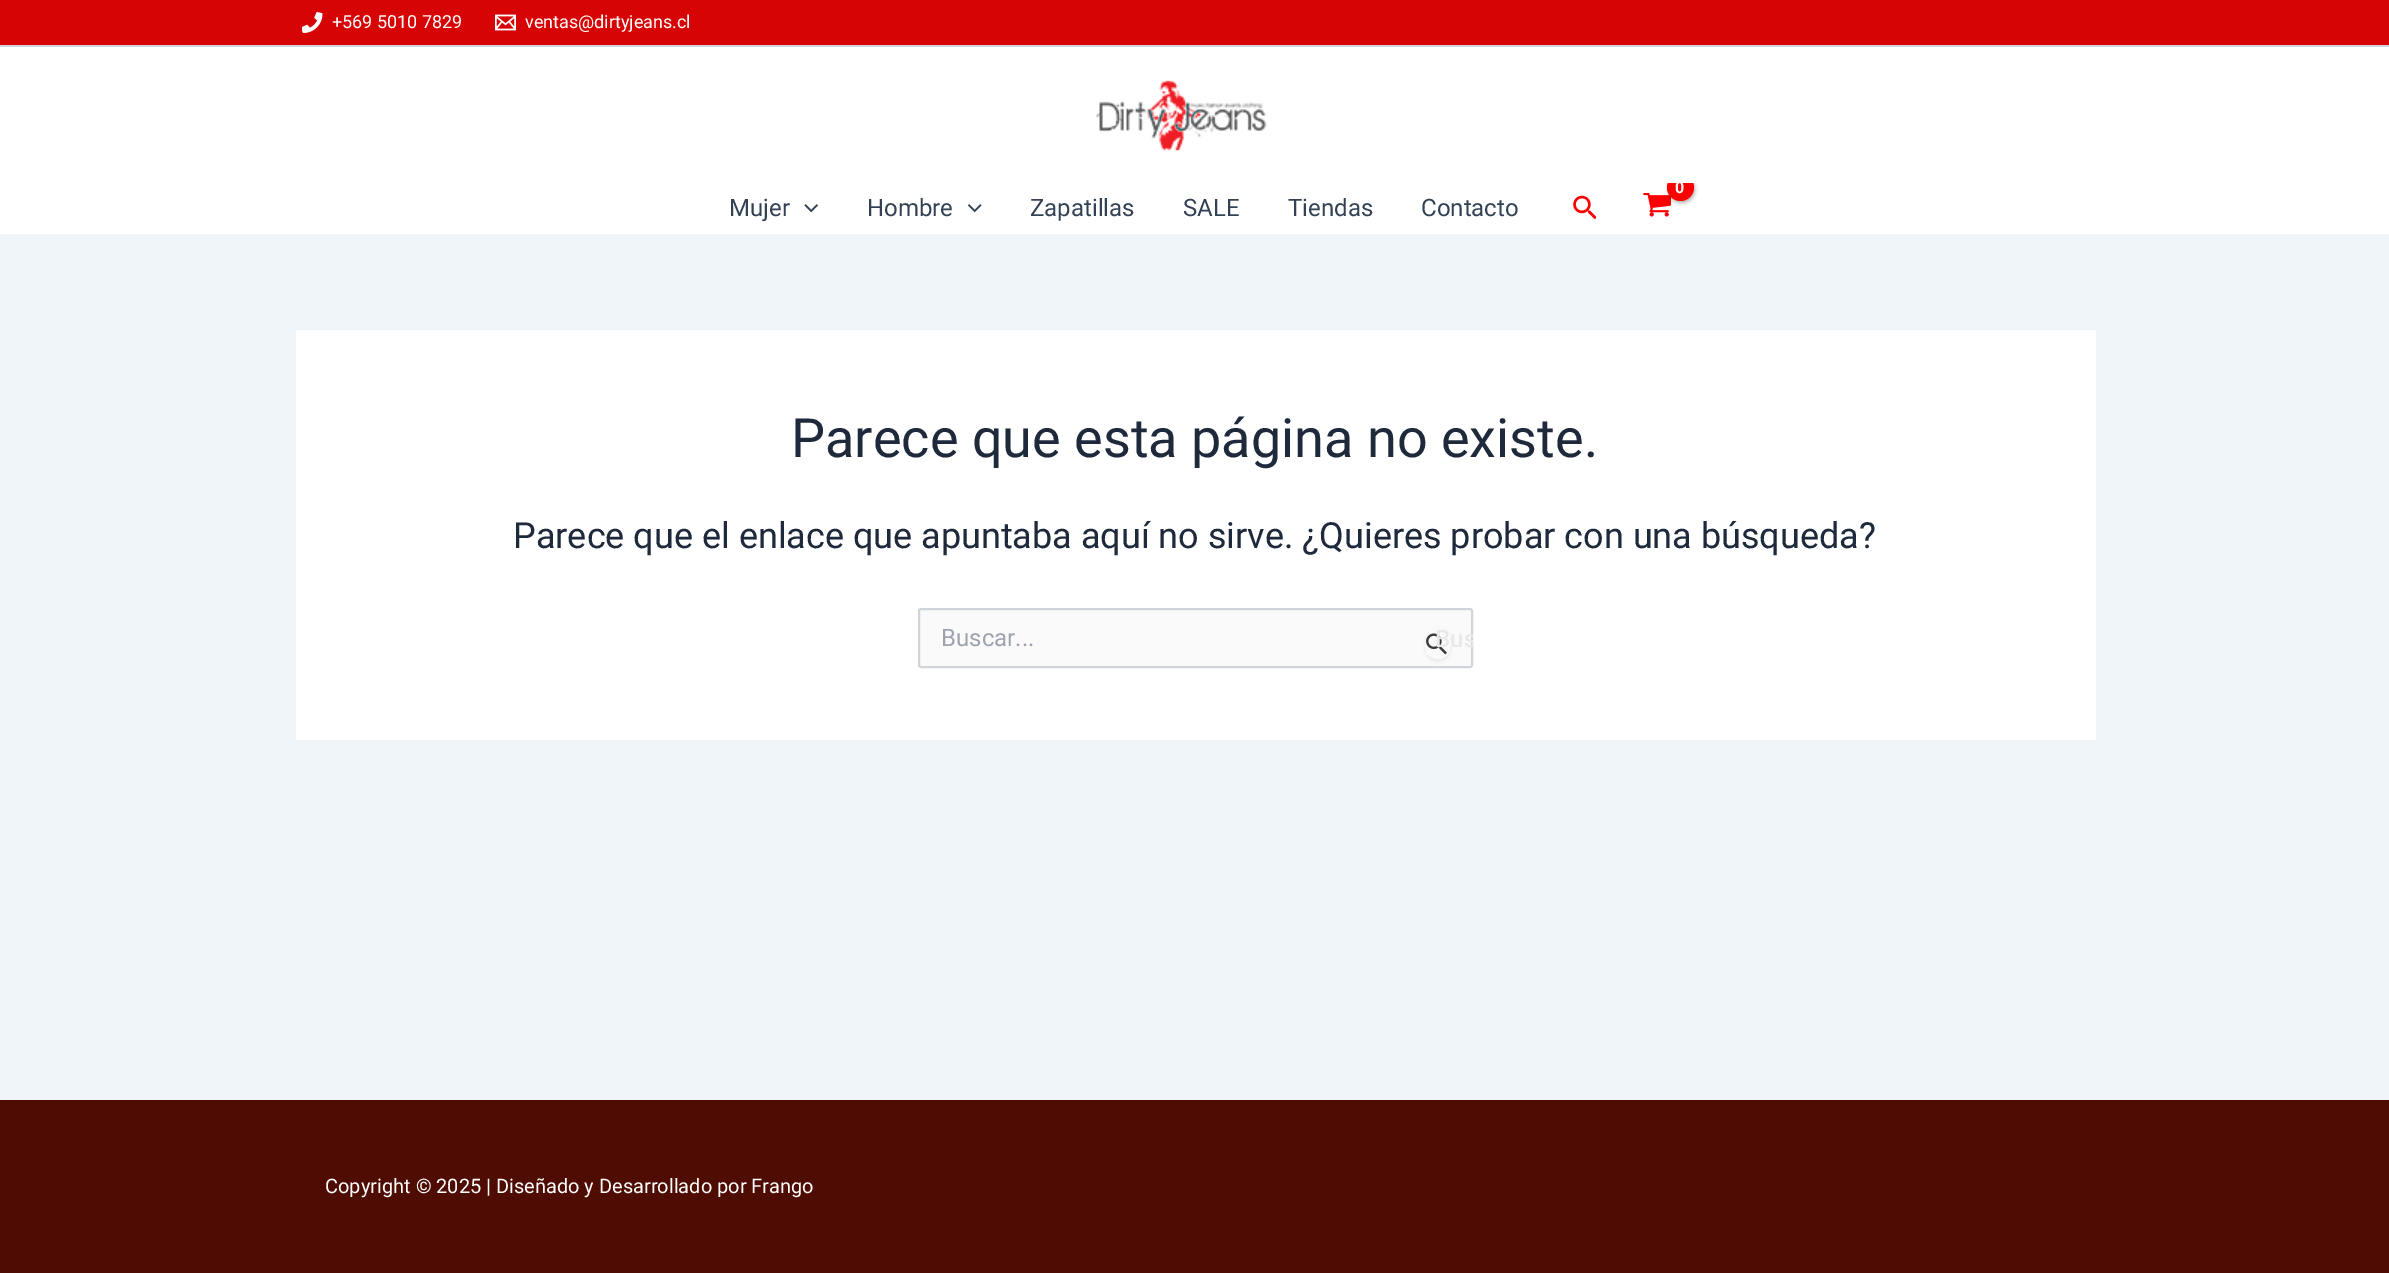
%!PS
<< /PageSize [2389 1273] /PageUsesTransparency true >> setpagedevice
/rgb { 3 { 255 div 3 1 roll } repeat setrgbcolor } def
/font { [ exch dup neg 0 0 3 -1 roll 0 0 ] selectfont } def
/alpha { dup .setfillconstantalpha .setstrokeconstantalpha } def
/circle { newpath 0 360 arc closepath } def
/roundrect { 5 dict begin { /r /h /w /y /x } { exch def } forall
  x r add y moveto x w add y 2 copy h add r arct x w add y h add x 1 index r arct
  x y h add x y r arct x y 2 copy exch w add exch r arct closepath end } def
/shadow { 12 dict begin { /a /b /q /h /w /y /x } { exch def } forall gsave /was 0 def
  9 -2 -9 { dup b mul 4 div /e exch def 1 sub .425 mul 2.718 exch exp 1 add a .99 .min exch div /now exch def
    1 1 now sub 1 was sub div sub alpha /was now def
    w h .min e 2 mul add 0 gt { x e sub y e sub w e 2 mul add h e 2 mul add
      q e add b .6 mul add w h .min 2 div e add .min 0 .max roundrect fill } if } for grestore end } def
/picture { 5 dict begin { /h /w /y /x /name } { exch def } forall
  gsave x y translate w h scale
  w h 8 [w 0 0 h 0 0] name (r) file false 3 colorimage grestore end } def
0 .pushpdf14devicefilter
0 1273 translate 1 -1 scale
4 setmiterlimit
240 245 250 rgb
0 0 2389 1273 rectfill
214 4 4 rgb
0 0 2389 45 rectfill
209 213 219 rgb
0 45 2389 2 rectfill
(img/1.rgb) 302 12 21 21 picture
(img/2.rgb) 495 14 21 17 picture
255 255 255 rgb
0 183 2389 51 rectfill
(img/4.rgb) 1643 193 29 24 picture
0 0 0 rgb
1668 176 27 27 13.5 2 0.3 shadow
252 1 1 rgb
1680.5 187.5 13.5 circle fill
255 255 255 rgb
0 47 2389 136 rectfill
(img/3.rgb) 1096 80 171 71 picture
(img/5.rgb) 804 204 14 9 picture
(img/6.rgb) 968 204 14 9 picture
(img/7.rgb) 1573 195 23 25 picture
296 330 1800 410 rectfill
250 250 250 rgb
919 609 553 58 2 roundrect gsave fill grestore
209 213 219 rgb
2 setlinewidth
stroke
gsave
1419 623 moveto 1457 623 lineto 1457 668 lineto 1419 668 lineto closepath 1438 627 moveto 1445 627 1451 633 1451 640 curveto 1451 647 lineto 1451 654 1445 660 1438 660 curveto 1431 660 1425 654 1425 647 curveto 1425 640 lineto 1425 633 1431 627 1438 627 curveto closepath eoclip newpath
0 0 0 rgb
1425 629 26 33 13 1.5 0.05 shadow
grestore
(img/8.rgb) 1426 633 21 22 picture
79 12 3 rgb
0 1100 2389 173 rectfill
/Roboto-Regular 18 font
255 255 255 rgb
332 28 moveto (+569 5010 7829) show
525 28 moveto (ventas@dirtyjeans.cl) show
/Roboto-Bold 16 font
1675 193 moveto -1 0 (0) ashow
/Roboto-Regular 24 font
51 65 85 rgb
[
  [(Mujer) 729 216]
  [(Hombre) 867 216]
  [(Zapatillas) 1030 216]
  [(SALE) 1183 216]
  [(Tiendas) 1288 216]
  [(Contacto) 1421 216]
] { aload pop moveto show } forall
/Roboto-Regular 54 font
30 41 59 rgb
791 457 moveto (Parece que esta página no existe.) show
/Roboto-Regular 36 font
513 548 moveto (Parece que el enlace que apuntaba aquí no sirve. ¿Quieres probar con una búsqueda?) show
/Roboto-Regular 24 font
156 163 175 rgb
941 646 moveto (Buscar...) show
gsave
1406 608 67 63 3 roundrect clip newpath
/Roboto-Medium 24 font
232 232 233 rgb
1435 647 moveto (Bus) show
grestore
/Roboto-Regular 20 font
255 255 255 rgb
325 1193 moveto (Copyright © 2025 | Diseñado y Desarrollado por Frango) show
.poppdf14devicefilter showpage
